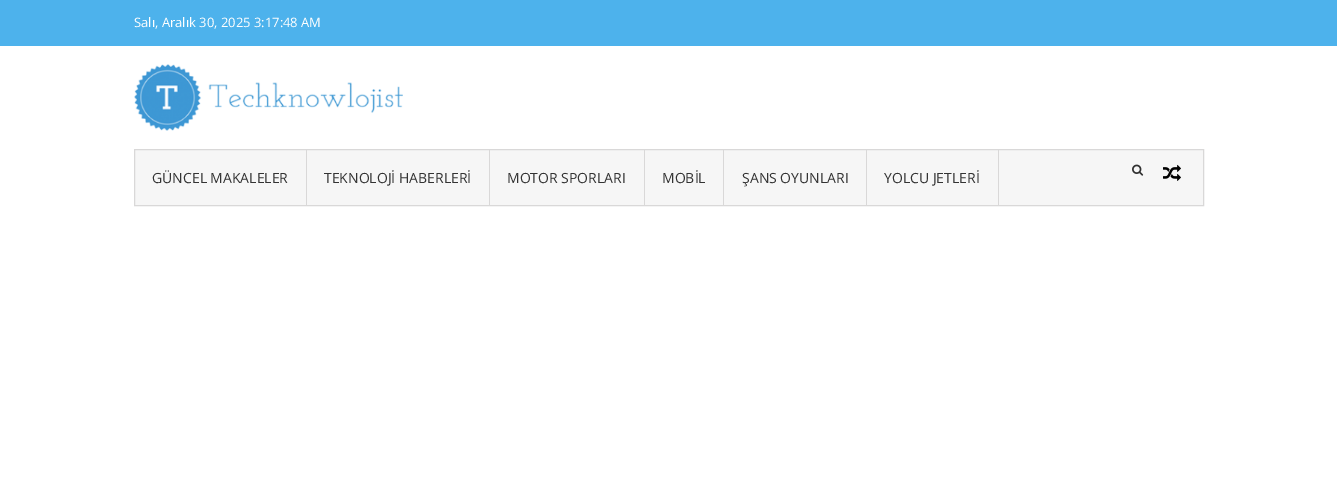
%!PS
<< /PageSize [1337 501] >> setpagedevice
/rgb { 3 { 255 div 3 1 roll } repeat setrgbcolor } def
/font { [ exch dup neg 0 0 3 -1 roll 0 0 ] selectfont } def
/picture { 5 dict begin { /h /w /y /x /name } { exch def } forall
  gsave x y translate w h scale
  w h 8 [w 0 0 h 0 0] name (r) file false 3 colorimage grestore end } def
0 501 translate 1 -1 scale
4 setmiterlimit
255 255 255 rgb
0 0 1337 501 rectfill
77 178 236 rgb
0 0 1337 46 rectfill
(img/1.rgb) 134 64 269 67 picture
246 246 246 rgb
134.5 149.5 moveto 1203.5 149.5 lineto 1203.5 205.5 lineto 134.5 205.5 lineto closepath gsave fill grestore
217 216 216 rgb
stroke
[
  [306 150 1 55 217 216 216]
  [489 150 1 55 217 216 216]
  [644 150 1 55 217 216 216]
  [723 150 1 55 217 216 216]
  [866 150 1 55 217 216 216]
  [998 150 1 55 217 216 216]
] { aload pop rgb rectfill } forall
(img/2.rgb) 1132 164 12 12 picture
(img/3.rgb) 1163 164 18 17 picture
/OpenSans-Regular 13 font
255 255 255 rgb
134 27 moveto (Salı, Aralık 30, 2025 3:17:48 AM) show
/OpenSans-Regular 14 font
51 51 51 rgb
[
  [(GÜNCEL MAKALELER) 152 183]
  [(TEKNOLOJİ HABERLERİ) 324 183]
  [(MOTOR SPORLARI) 507 183]
  [(MOBİL) 662 183]
  [(ŞANS OYUNLARI) 742 183]
  [(YOLCU JETLERİ) 884 183]
] { aload pop moveto show } forall
showpage
